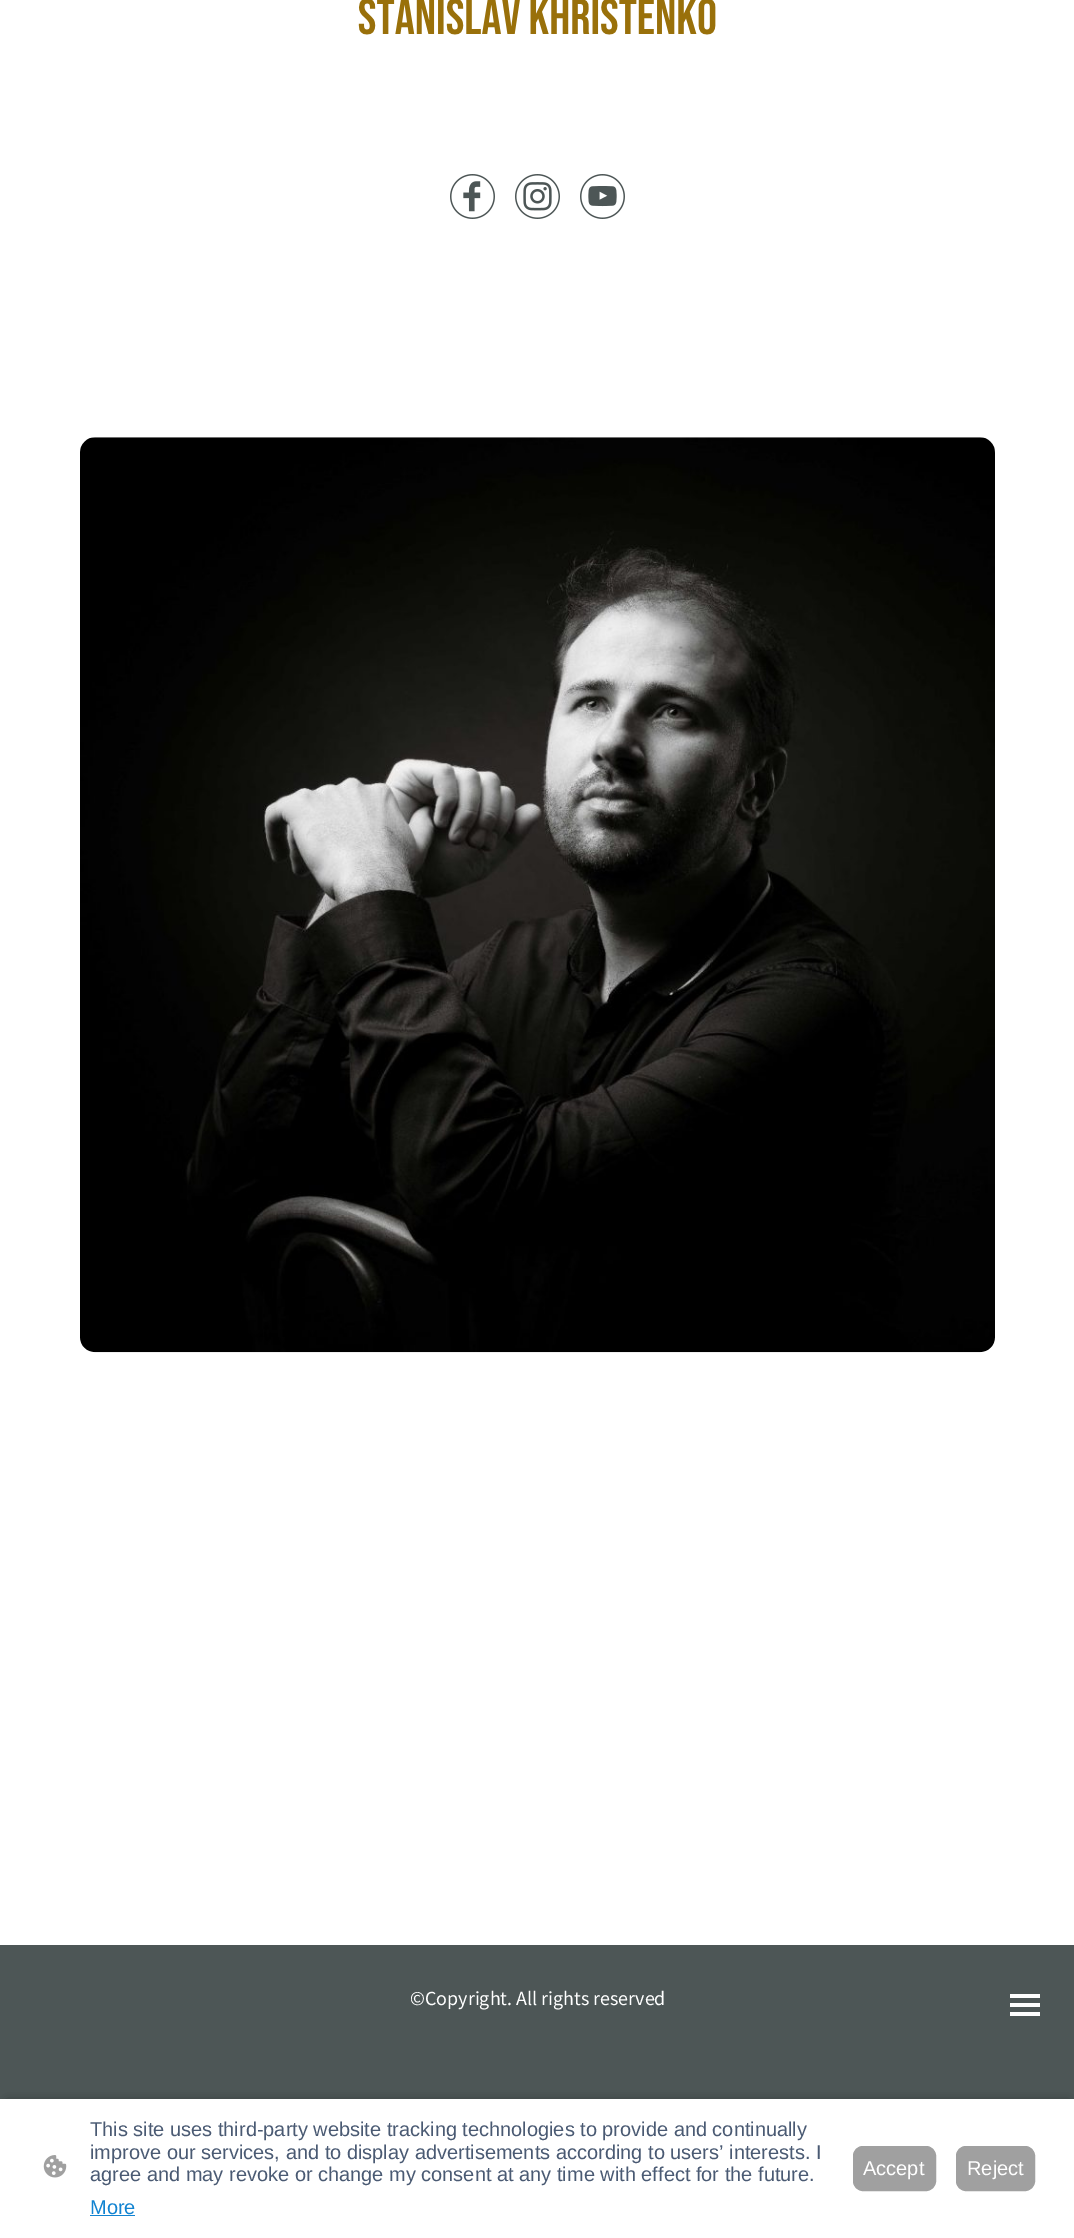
%!PS
<< /PageSize [1074 2238] /PageUsesTransparency true >> setpagedevice
/rgb { 3 { 255 div 3 1 roll } repeat setrgbcolor } def
/font { [ exch dup neg 0 0 3 -1 roll 0 0 ] selectfont } def
/alpha { dup .setfillconstantalpha .setstrokeconstantalpha } def
/roundrect { 5 dict begin { /r /h /w /y /x } { exch def } forall
  x r add y moveto x w add y 2 copy h add r arct x w add y h add x 1 index r arct
  x y h add x y r arct x y 2 copy exch w add exch r arct closepath end } def
/shadow { 12 dict begin { /a /b /q /h /w /y /x } { exch def } forall gsave /was 0 def
  9 -2 -9 { dup b mul 4 div /e exch def 1 sub .425 mul 2.718 exch exp 1 add a .99 .min exch div /now exch def
    1 1 now sub 1 was sub div sub alpha /was now def
    w h .min e 2 mul add 0 gt { x e sub y e sub w e 2 mul add h e 2 mul add
      q e add b .6 mul add w h .min 2 div e add .min 0 .max roundrect fill } if } for grestore end } def
/picture { 5 dict begin { /h /w /y /x /name } { exch def } forall
  gsave x y translate w h scale
  w h 8 [w 0 0 h 0 0] name (r) file false 3 colorimage grestore end } def
0 .pushpdf14devicefilter
0 2238 translate 1 -1 scale
4 setmiterlimit
255 255 255 rgb
0 0 1074 2238 rectfill
(img/1.rgb) 358 0 358 35 picture
(img/2.rgb) 450 174 45 45 picture
(img/3.rgb) 515 174 45 45 picture
(img/4.rgb) 580 174 45 45 picture
(img/5.rgb) 80 437 915 916 picture
[
  [0 1945 1074 154 77 86 86]
  [1010 1994 30 4 255 255 255]
  [1010 2003 30 4 255 255 255]
  [1010 2012 30 4 255 255 255]
] { aload pop rgb rectfill } forall
0 0 0 rgb
8 2103 1060 125 0 5 0.63 shadow
255 255 255 rgb
0 2099 1074 139 rectfill
(img/6.rgb) 43 2155 24 23 picture
17 131 209 rgb
90 2215 45 1 rectfill
160 160 160 rgb
853.5 2146.5 82 44 9.5 roundrect gsave fill grestore
stroke
956.5 2146.5 78 44 9.5 roundrect gsave fill grestore
stroke
/SourceSansPro-Regular 20 font
255 255 255 rgb
410 2005 moveto (©Copyright. All rights reserved) show
/LiberationSans-Regular 20 font
74 90 115 rgb
[
  [(This site uses third-party website tracking technologies to provide and continually) 90 2136]
  [(improve our services, and to display advertisements according to users’ interests. I) 90 2159]
  [(agree and may revoke or change my consent at any time with effect for the future.) 90 2181]
] { aload pop moveto show } forall
17 131 209 rgb
90 2214 moveto (More) show
255 255 255 rgb
863 2175 moveto (Accept) show
967 2175 moveto (Reject) show
.poppdf14devicefilter showpage
